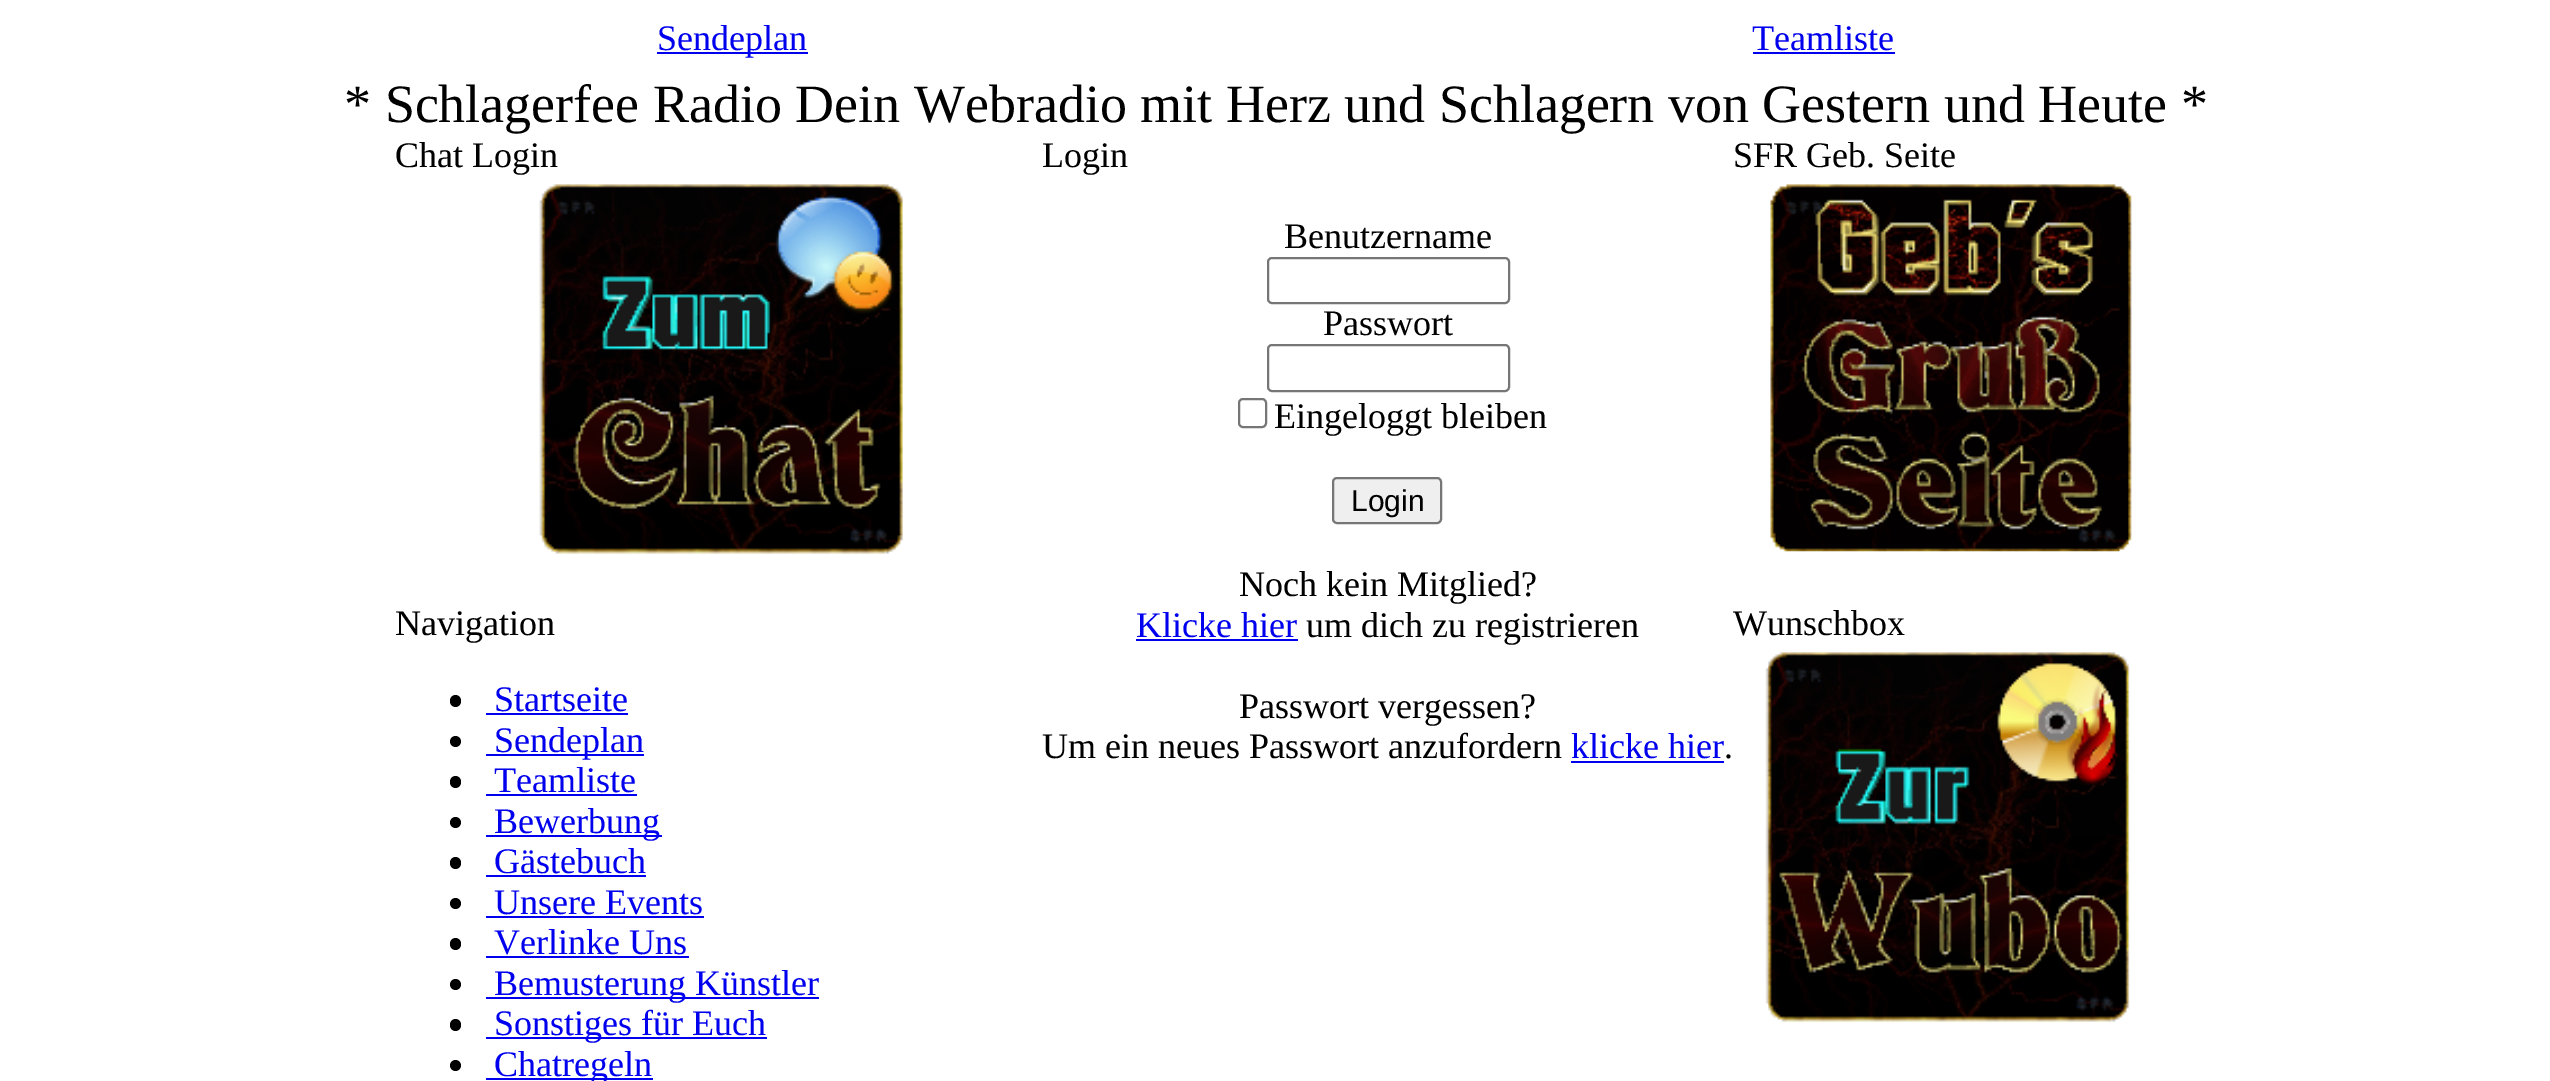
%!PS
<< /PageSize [2550 1081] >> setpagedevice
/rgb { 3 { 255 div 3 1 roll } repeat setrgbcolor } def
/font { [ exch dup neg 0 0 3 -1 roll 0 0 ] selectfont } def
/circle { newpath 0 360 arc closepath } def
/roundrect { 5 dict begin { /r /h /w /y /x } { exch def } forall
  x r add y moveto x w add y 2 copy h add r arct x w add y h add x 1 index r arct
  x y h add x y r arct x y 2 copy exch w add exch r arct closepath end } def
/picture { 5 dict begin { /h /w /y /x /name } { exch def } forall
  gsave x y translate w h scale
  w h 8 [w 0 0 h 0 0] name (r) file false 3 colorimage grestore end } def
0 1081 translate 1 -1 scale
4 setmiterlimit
255 255 255 rgb
0 0 2550 1081 rectfill
0 0 238 rgb
657 52 151 2 rectfill
1753 52 142 2 rectfill
(img/1.rgb) 539 184 364 370 picture
0 0 0 rgb
450 695 11 12 5.5 roundrect fill
0 0 238 rgb
486 713 142 2 rectfill
0 0 0 rgb
455.5 741.5 5.5 circle fill
0 0 238 rgb
486 754 158 2 rectfill
0 0 0 rgb
450 776 11 12 5.5 roundrect fill
0 0 238 rgb
486 794 151 2 rectfill
0 0 0 rgb
455.5 822.5 5.5 circle fill
0 0 238 rgb
486 835 176 2 rectfill
0 0 0 rgb
450 857 11 12 5.5 roundrect fill
0 0 238 rgb
486 875 160 2 rectfill
0 0 0 rgb
455.5 903.5 5.5 circle fill
0 0 238 rgb
486 916 218 2 rectfill
0 0 0 rgb
450 938 11 12 5.5 roundrect fill
0 0 238 rgb
486 956 203 2 rectfill
0 0 0 rgb
455.5 984.5 5.5 circle fill
0 0 238 rgb
486 997 333 2 rectfill
0 0 0 rgb
450 1019 11 12 5.5 roundrect fill
0 0 238 rgb
486 1037 281 2 rectfill
0 0 0 rgb
455.5 1065.5 5.5 circle fill
0 0 238 rgb
486 1078 167 2 rectfill
118 118 118 rgb
2 setlinewidth
1268 258 241 45 4 roundrect stroke
1268 345 241 46 4 roundrect stroke
1239 399 27 28 4 roundrect stroke
239 239 239 rgb
1333 478 108 45 4 roundrect gsave fill grestore
118 118 118 rgb
stroke
0 0 238 rgb
1136 639 162 2 rectfill
1571 761 153 2 rectfill
(img/2.rgb) 1770 184 362 368 picture
(img/3.rgb) 1765 652 365 370 picture
/LiberationSerif-Regular 36 font
657 50 moveto (Sendeplan) show
1752 50 moveto (Teamliste) show
/LiberationSerif-Regular 54 font
0 0 0 rgb
344 122 moveto (* Schlagerfee Radio Dein Webradio mit Herz und Schlagern von Gestern und Heute *) show
/LiberationSerif-Regular 36 font
395 167 moveto (Chat Login) show
395 635 moveto (Navigation) show
0 0 238 rgb
[
  [(Startseite) 494 711]
  [(Sendeplan) 494 752]
  [(Teamliste) 494 792]
  [(Bewerbung) 494 833]
  [(Gästebuch) 494 873]
  [(Unsere Events) 494 914]
  [(Verlinke Uns) 494 954]
  [(Bemusterung Künstler) 494 995]
  [(Sonstiges für Euch) 494 1035]
  [(Chatregeln) 494 1076]
] { aload pop moveto show } forall
0 0 0 rgb
[
  [(Login) 1042 167]
  [(Benutzername) 1284 248]
  [(Passwort) 1323 335]
  [(Eingeloggt bleiben) 1274 428]
] { aload pop moveto show } forall
/LiberationSans-Regular 30 font
1351 511 moveto (Login) show
/LiberationSerif-Regular 36 font
1239 596 moveto (Noch kein Mitglied?) show
0 0 238 rgb
1136 637 moveto (Klicke hier) show
0 0 0 rgb
[
  [(um dich zu registrieren) 1306 637]
  [(Passwort vergessen?) 1239 718]
  [(Um ein neues Passwort anzufordern) 1042 758]
] { aload pop moveto show } forall
0 0 238 rgb
1571 758 moveto (klicke hier) show
0 0 0 rgb
[
  [(.) 1724 758]
  [(SFR Geb. Seite) 1733 167]
  [(Wunschbox) 1733 635]
] { aload pop moveto show } forall
showpage
